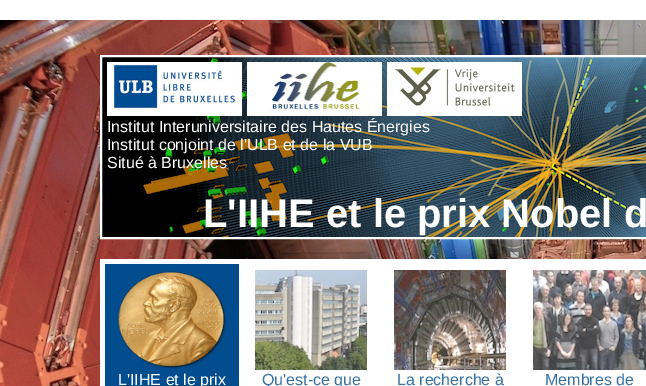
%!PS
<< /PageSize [646 386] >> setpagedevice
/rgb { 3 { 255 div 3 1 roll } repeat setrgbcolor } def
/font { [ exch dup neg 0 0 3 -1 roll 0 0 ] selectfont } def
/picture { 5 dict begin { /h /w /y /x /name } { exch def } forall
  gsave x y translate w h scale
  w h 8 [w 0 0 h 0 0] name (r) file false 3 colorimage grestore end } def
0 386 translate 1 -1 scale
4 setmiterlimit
255 255 255 rgb
0 0 646 386 rectfill
(img/1.rgb) 0 20 646 366 picture
(img/2.rgb) 102 57 544 180 picture
2 setlinewidth
101 56 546 182 rectstroke
107 62 135 54 rectfill
(img/3.rgb) 113 64 123 45 picture
247 62 135 54 rectfill
(img/4.rgb) 270 62 90 49 picture
387 62 135 54 rectfill
(img/5.rgb) 394 67 121 39 picture
100 259 546 127 rectfill
2 77 142 rgb
105 264 134 122 rectfill
(img/6.rgb) 117 271 110 98 picture
(img/7.rgb) 255 270 112 100 picture
(img/8.rgb) 394 270 112 100 picture
(img/9.rgb) 533 270 113 100 picture
/LiberationSans-Regular 16 font
255 255 255 rgb
[
  [(Institut Interuniversitaire des Hautes Énergies) 107 132]
  [(Institut conjoint de l'ULB et de la VUB) 107 150]
  [(Situé à Bruxelles) 107 168]
] { aload pop moveto show } forall
/LiberationSans-Bold 40 font
203 227 moveto (L'IIHE et le prix Nobel d) show
/LiberationSans-Regular 16 font
118 385 moveto (L'IIHE et le prix) show
53 113 165 rgb
[
  [(Qu'est-ce que) 262 385]
  [(La recherche à) 397 385]
  [(Membres de) 545 385]
] { aload pop moveto show } forall
showpage
